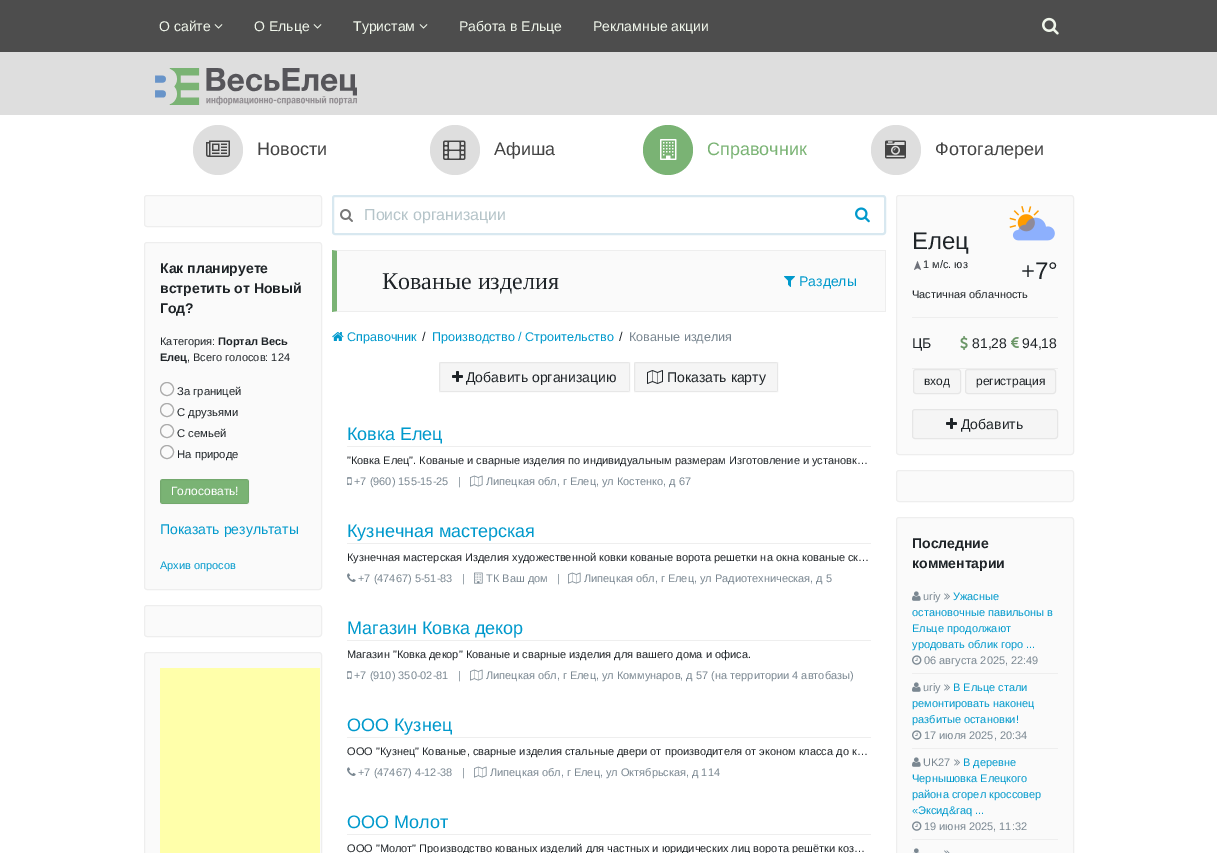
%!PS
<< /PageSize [1217 853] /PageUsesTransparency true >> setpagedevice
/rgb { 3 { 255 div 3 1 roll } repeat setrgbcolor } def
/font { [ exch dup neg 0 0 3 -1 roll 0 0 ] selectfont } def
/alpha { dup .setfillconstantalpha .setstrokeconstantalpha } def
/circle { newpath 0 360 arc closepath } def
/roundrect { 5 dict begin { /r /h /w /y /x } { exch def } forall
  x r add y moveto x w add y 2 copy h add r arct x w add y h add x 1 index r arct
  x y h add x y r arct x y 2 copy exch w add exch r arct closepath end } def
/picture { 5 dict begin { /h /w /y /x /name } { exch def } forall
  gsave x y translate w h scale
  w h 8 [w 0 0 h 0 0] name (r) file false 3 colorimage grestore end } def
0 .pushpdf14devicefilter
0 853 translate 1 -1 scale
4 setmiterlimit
255 255 255 rgb
0 0 1217 853 rectfill
77 77 77 rgb
0 0 1217 52 rectfill
(img/1.rgb) 214 24 9 5 picture
(img/1.rgb) 313 24 9 5 picture
(img/1.rgb) 419 24 9 5 picture
(img/2.rgb) 1042 17 17 18 picture
222 222 222 rgb
0 52 1217 63 rectfill
(img/3.rgb) 155 68 202 37 picture
218 150 25 circle fill
(img/4.rgb) 206 140 24 17 picture
455 150 25 circle fill
(img/5.rgb) 443 140 23 20 picture
122 179 116 rgb
668 150 25 circle fill
(img/6.rgb) 660 139 17 21 picture
222 222 222 rgb
896 150 25 circle fill
(img/7.rgb) 885 140 21 19 picture
250 250 250 rgb
144.5 195.5 177 31 2.5 roundrect gsave fill grestore
238 238 238 rgb
stroke
250 250 250 rgb
144.5 242.5 177 347 2.5 roundrect gsave fill grestore
238 238 238 rgb
stroke
170 170 170 rgb
167 389 6.5 circle stroke
167 410 6.5 circle stroke
167 431 6.5 circle stroke
167 452 6.5 circle stroke
122 179 116 rgb
160 479 89 25 3 roundrect fill
0.06 alpha
0 0 0 rgb
160.5 479.5 88 24 rectstroke
1 alpha
250 250 250 rgb
144.5 605.5 177 31 2.5 roundrect gsave fill grestore
238 238 238 rgb
stroke
250 250 250 rgb
144.5 652.5 177 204 2.5 roundrect gsave fill grestore
238 238 238 rgb
stroke
255 255 170 rgb
160 668 160 185 rectfill
216 232 240 rgb
2 setlinewidth
333 196 552 38 2 roundrect stroke
(img/8.rgb) 340 209 13 13 picture
(img/9.rgb) 855 207 15 16 picture
250 250 250 rgb
337 251 548 60 rectfill
238 238 238 rgb
332 250 moveto 886 250 lineto 885 251 lineto 337 251 lineto closepath fill
885 250 1 62 rectfill
886 312 moveto 332 312 lineto 337 311 lineto 885 311 lineto closepath fill
122 179 116 rgb
332 312 moveto 332 250 lineto 337 251 lineto 337 311 lineto closepath fill
(img/10.rgb) 784 276 11 11 picture
(img/11.rgb) 332 332 12 9 picture
245 245 245 rgb
439 362 191 30 3 roundrect fill
0.06 alpha
0 0 0 rgb
1 setlinewidth
439.5 362.5 190 29 rectstroke
1 alpha
(img/12.rgb) 452 371 11 11 picture
245 245 245 rgb
634 362 144 30 3 roundrect fill
0.06 alpha
0 0 0 rgb
634.5 362.5 143 29 rectstroke
1 alpha
(img/13.rgb) 647 370 16 14 picture
238 238 238 rgb
347 446 524 1 rectfill
(img/14.rgb) 347 477 5 8 picture
(img/15.rgb) 470 475 13 12 picture
347 543 524 1 rectfill
(img/16.rgb) 347 573 9 9 picture
(img/17.rgb) 474 572 9 12 picture
(img/15.rgb) 568 572 13 12 picture
347 640 524 1 rectfill
(img/14.rgb) 347 671 5 8 picture
(img/15.rgb) 470 669 13 12 picture
347 737 524 1 rectfill
(img/16.rgb) 347 767 9 9 picture
(img/15.rgb) 474 766 13 12 picture
347 834 524 1 rectfill
250 250 250 rgb
896.5 195.5 177 259 2.5 roundrect gsave fill grestore
238 238 238 rgb
stroke
110 113 122 rgb
917.5 261 moveto 921 270 lineto 917.5 268 lineto 914 270 lineto closepath fill
(img/18.rgb) 1009 206 46 35 picture
238 238 238 rgb
912 317 146 1 rectfill
(img/19.rgb) 960 336 8 14 picture
(img/20.rgb) 1011 337 8 11 picture
912 368 146 1 rectfill
245 245 245 rgb
913.5 369.5 47 24 2.5 roundrect gsave fill grestore
230 230 230 rgb
stroke
245 245 245 rgb
965.5 369.5 90 24 2.5 roundrect gsave fill grestore
230 230 230 rgb
stroke
245 245 245 rgb
912.5 409.5 145 29 2.5 roundrect gsave fill grestore
230 230 230 rgb
stroke
(img/12.rgb) 946 418 11 11 picture
250 250 250 rgb
896.5 470.5 177 31 2.5 roundrect gsave fill grestore
238 238 238 rgb
stroke
250 250 250 rgb
896.5 517.5 177 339 2.5 roundrect gsave fill grestore
238 238 238 rgb
stroke
(img/21.rgb) 912 591 9 10 picture
(img/22.rgb) 944 593 6 7 picture
(img/23.rgb) 912 655 10 10 picture
912 673 146 1 rectfill
(img/21.rgb) 912 682 9 10 picture
(img/22.rgb) 944 684 6 7 picture
(img/23.rgb) 912 730 10 10 picture
912 748 146 1 rectfill
(img/21.rgb) 912 757 9 10 picture
(img/22.rgb) 954 759 6 7 picture
(img/23.rgb) 912 821 10 10 picture
912 839 146 1 rectfill
(img/24.rgb) 913 848 7 5 picture
(img/25.rgb) 944 850 6 3 picture
/LiberationSans-Regular 14 font
240 246 235 rgb
[
  [(О сайте) 159 31]
  [(О Ельце) 254 31]
  [(Туристам) 353 31]
  [(Работа в Ельце) 459 31]
  [(Рекламные акции) 593 31]
] { aload pop moveto show } forall
/LiberationSans-Regular 18 font
68 68 68 rgb
257 155 moveto (Новости) show
494 155 moveto (Афиша) show
122 179 116 rgb
707 155 moveto (Справочник) show
68 68 68 rgb
935 155 moveto (Фотогалереи) show
/LiberationSans-Bold 14 font
31 36 40 rgb
[
  [(Как планируете) 160 273]
  [(встретить от Новый) 160 293]
  [(Год?) 160 313]
] { aload pop moveto show } forall
/LiberationSans-Regular 11 font
160 345 moveto (Категория:) show
/LiberationSans-Bold 11 font
218 345 moveto (Портал Весь) show
160 361 moveto (Елец) show
/LiberationSans-Regular 11 font
187 361 moveto (, Всего голосов: 124) show
/LiberationSans-Regular 11.25 font
[
  [(За границей) 177 395]
  [(С друзьями) 177 416]
  [(С семьей) 177 437]
  [(На природе) 177 458]
] { aload pop moveto show } forall
/LiberationSans-Regular 12 font
255 255 255 rgb
171 495 moveto (Голосовать!) show
/LiberationSans-Regular 14 font
0 153 204 rgb
160 534 moveto (Показать результаты) show
/LiberationSans-Regular 11 font
160 569 moveto (Архив опросов) show
/LiberationSans-Regular 16 font
181 196 201 rgb
364 220 moveto (Поиск организации) show
/LiberationSerif-Regular 24 font
31 36 40 rgb
382 289 moveto (Кованые изделия) show
/LiberationSans-Regular 14 font
0 153 204 rgb
799 286 moveto (Разделы) show
/LiberationSans-Regular 12.6 font
347 341 moveto (Справочник) show
31 36 40 rgb
422 341 moveto (/) show
0 153 204 rgb
432 341 moveto (Производство / Строительство) show
31 36 40 rgb
619 341 moveto (/) show
122 135 145 rgb
629 341 moveto (Кованые изделия) show
/LiberationSans-Regular 14 font
31 36 40 rgb
466 382 moveto (Добавить организацию) show
667 382 moveto (Показать карту) show
/LiberationSans-Regular 18 font
0 153 204 rgb
347 440 moveto (Ковка Елец) show
/LiberationSans-Regular 11 font
31 36 40 rgb
347 464 moveto ("Ковка Елец". Кованые и сварные изделия по индивидуальным размерам Изготовление и установк…) show
122 135 145 rgb
354 485 moveto (+7 \(960\) 155-15-25   |) show
486 485 moveto (Липецкая обл, г Елец, ул Костенко, д 67) show
/LiberationSans-Regular 18 font
0 153 204 rgb
347 537 moveto (Кузнечная мастерская) show
/LiberationSans-Regular 11 font
31 36 40 rgb
347 561 moveto (Кузнечная мастерская Изделия художественной ковки кованые ворота решетки на окна кованые ск…) show
122 135 145 rgb
[
  [(+7 \(47467\) 5-51-83   |) 358 582]
  [(ТК Ваш дом   |) 486 582]
  [(Липецкая обл, г Елец, ул Радиотехническая, д 5) 584 582]
] { aload pop moveto show } forall
/LiberationSans-Regular 18 font
0 153 204 rgb
347 634 moveto (Магазин Ковка декор) show
/LiberationSans-Regular 11 font
31 36 40 rgb
347 658 moveto (Магазин "Ковка декор" Кованые и сварные изделия для вашего дома и офиса.) show
122 135 145 rgb
354 679 moveto (+7 \(910\) 350-02-81   |) show
486 679 moveto (Липецкая обл, г Елец, ул Коммунаров, д 57 \(на территории 4 автобазы\)) show
/LiberationSans-Regular 18 font
0 153 204 rgb
347 731 moveto (ООО Кузнец) show
/LiberationSans-Regular 11 font
31 36 40 rgb
347 755 moveto (ООО "Кузнец" Кованые, сварные изделия стальные двери от производителя от эконом класса до к…) show
122 135 145 rgb
358 776 moveto (+7 \(47467\) 4-12-38   |) show
490 776 moveto (Липецкая обл, г Елец, ул Октябрьская, д 114) show
/LiberationSans-Regular 18 font
0 153 204 rgb
347 828 moveto (ООО Молот) show
/LiberationSans-Regular 11 font
31 36 40 rgb
347 852 moveto (ООО "Молот" Производство кованых изделий для частных и юридических лиц ворота решётки коз…) show
/LiberationSans-Regular 24 font
912 249 moveto (Елец) show
/LiberationSans-Regular 11 font
923 268 moveto (1 м/с. юз) show
/LiberationSans-Regular 24 font
1021 279 moveto (+7°) show
/LiberationSans-Regular 11 font
912 298 moveto (Частичная облачность) show
/LiberationSans-Regular 14 font
[
  [(ЦБ) 912 348]
  [(81,28) 972 348]
  [(94,18) 1022 348]
] { aload pop moveto show } forall
/LiberationSans-Regular 12 font
924 385 moveto (вход) show
976 385 moveto (регистрация) show
/LiberationSans-Regular 14 font
961 429 moveto (Добавить) show
/LiberationSans-Bold 14 font
912 548 moveto (Последние) show
912 568 moveto (комментарии) show
/LiberationSans-Regular 11 font
122 135 145 rgb
923 600 moveto (uriy) show
0 153 204 rgb
[
  [(Ужасные) 953 600]
  [(остановочные павильоны в) 912 616]
  [(Ельце продолжают) 912 632]
  [(уродовать облик горо ...) 912 648]
] { aload pop moveto show } forall
122 135 145 rgb
924 664 moveto (06 августа 2025, 22:49) show
923 691 moveto (uriy) show
0 153 204 rgb
[
  [(В Ельце стали) 953 691]
  [(ремонтировать наконец) 912 707]
  [(разбитые остановки!) 912 723]
] { aload pop moveto show } forall
122 135 145 rgb
924 739 moveto (17 июля 2025, 20:34) show
923 766 moveto (UK27) show
0 153 204 rgb
[
  [(В деревне) 963 766]
  [(Чернышовка Елецкого) 912 782]
  [(района сгорел кроссовер) 912 798]
  [(«Эксид&raq ...) 912 814]
] { aload pop moveto show } forall
122 135 145 rgb
924 830 moveto (19 июня 2025, 11:32) show
.poppdf14devicefilter showpage
